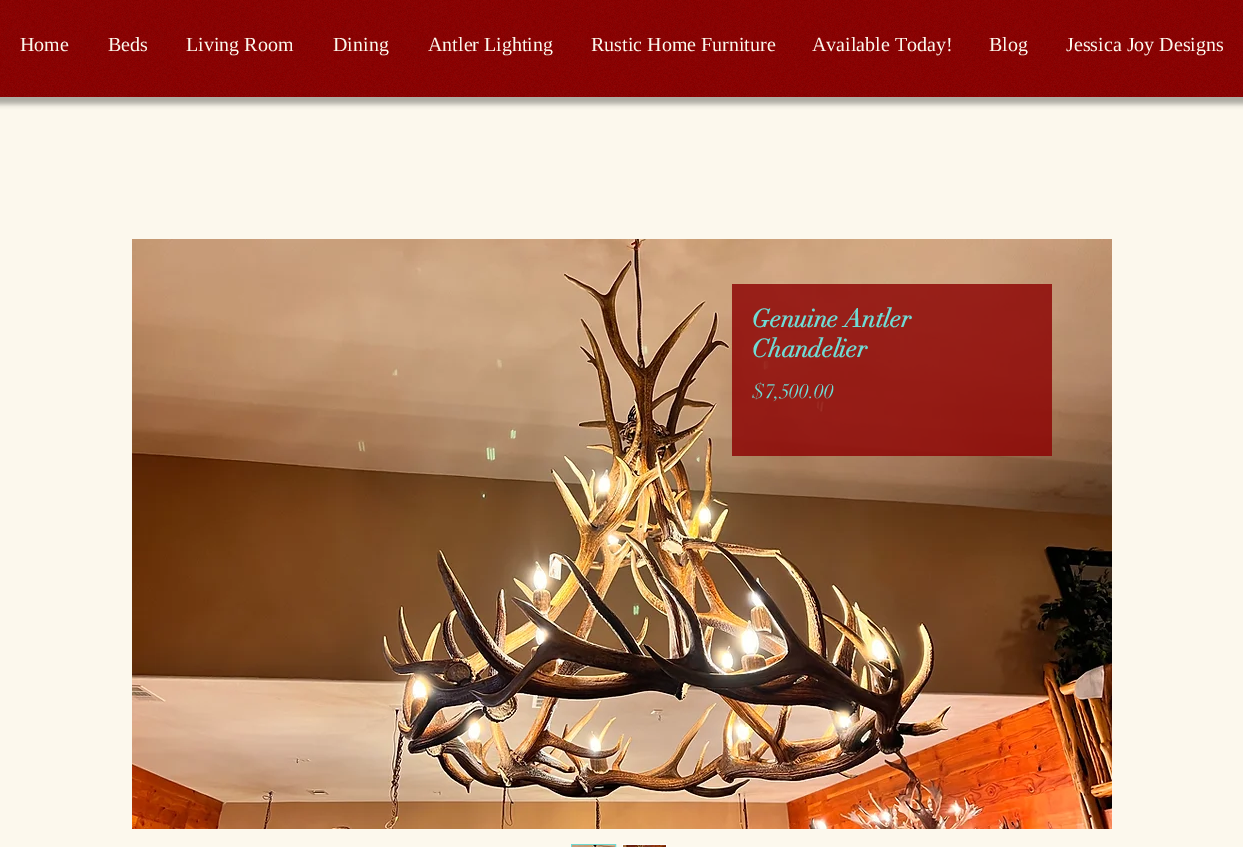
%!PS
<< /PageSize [1243 847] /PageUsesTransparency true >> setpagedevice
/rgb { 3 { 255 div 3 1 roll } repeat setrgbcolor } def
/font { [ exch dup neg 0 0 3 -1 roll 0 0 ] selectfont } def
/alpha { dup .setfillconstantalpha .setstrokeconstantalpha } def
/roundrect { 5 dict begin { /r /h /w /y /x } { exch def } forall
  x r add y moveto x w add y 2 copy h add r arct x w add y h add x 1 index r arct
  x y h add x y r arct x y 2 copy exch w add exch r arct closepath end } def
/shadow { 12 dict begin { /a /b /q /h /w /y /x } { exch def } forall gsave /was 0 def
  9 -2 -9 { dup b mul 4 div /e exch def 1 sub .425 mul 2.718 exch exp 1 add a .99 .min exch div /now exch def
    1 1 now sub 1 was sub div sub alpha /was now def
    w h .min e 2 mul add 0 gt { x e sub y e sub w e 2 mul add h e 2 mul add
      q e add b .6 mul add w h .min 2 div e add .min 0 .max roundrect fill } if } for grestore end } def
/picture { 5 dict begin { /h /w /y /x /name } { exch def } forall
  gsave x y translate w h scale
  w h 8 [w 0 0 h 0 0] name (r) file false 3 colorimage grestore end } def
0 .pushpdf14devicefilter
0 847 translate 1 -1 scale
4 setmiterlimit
252 248 237 rgb
0 0 1243 847 rectfill
0 0 0 rgb
-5 -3 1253 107 0 2.5 0.32 shadow
139 0 0 rgb
0 0 1243 97 rectfill
(img/1.rgb) 0 0 1243 97 picture
(img/2.rgb) 132 239 980 590 picture
112 219 212 rgb
571.5 844.5 44 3 rectstroke
(img/3.rgb) 572 845 43 2 picture
253 253 253 rgb
622 844 45 3 rectfill
(img/4.rgb) 623 845 43 2 picture
0.81 alpha
139 0 0 rgb
732 284 320 172 rectfill
/LiberationSerif-Regular 20 font
1 alpha
252 248 237 rgb
[
  [(Home) 20 51]
  [(Beds) 108 51]
  [(Living Room) 186 51]
  [(Dining) 333 51]
  [(Antler Lighting) 428 51]
  [(Rustic Home Furniture) 591 51]
  [(Available Today!) 812 51]
  [(Blog) 989 51]
  [(Jessica Joy Designs) 1066 51]
] { aload pop moveto show } forall
/didot-Bold 25 font
112 219 212 rgb
752 327 moveto (Genuine Antler) show
752 357 moveto (Chandelier) show
/didot-Regular 20 font
752 398 moveto ($7,500.00) show
.poppdf14devicefilter showpage
